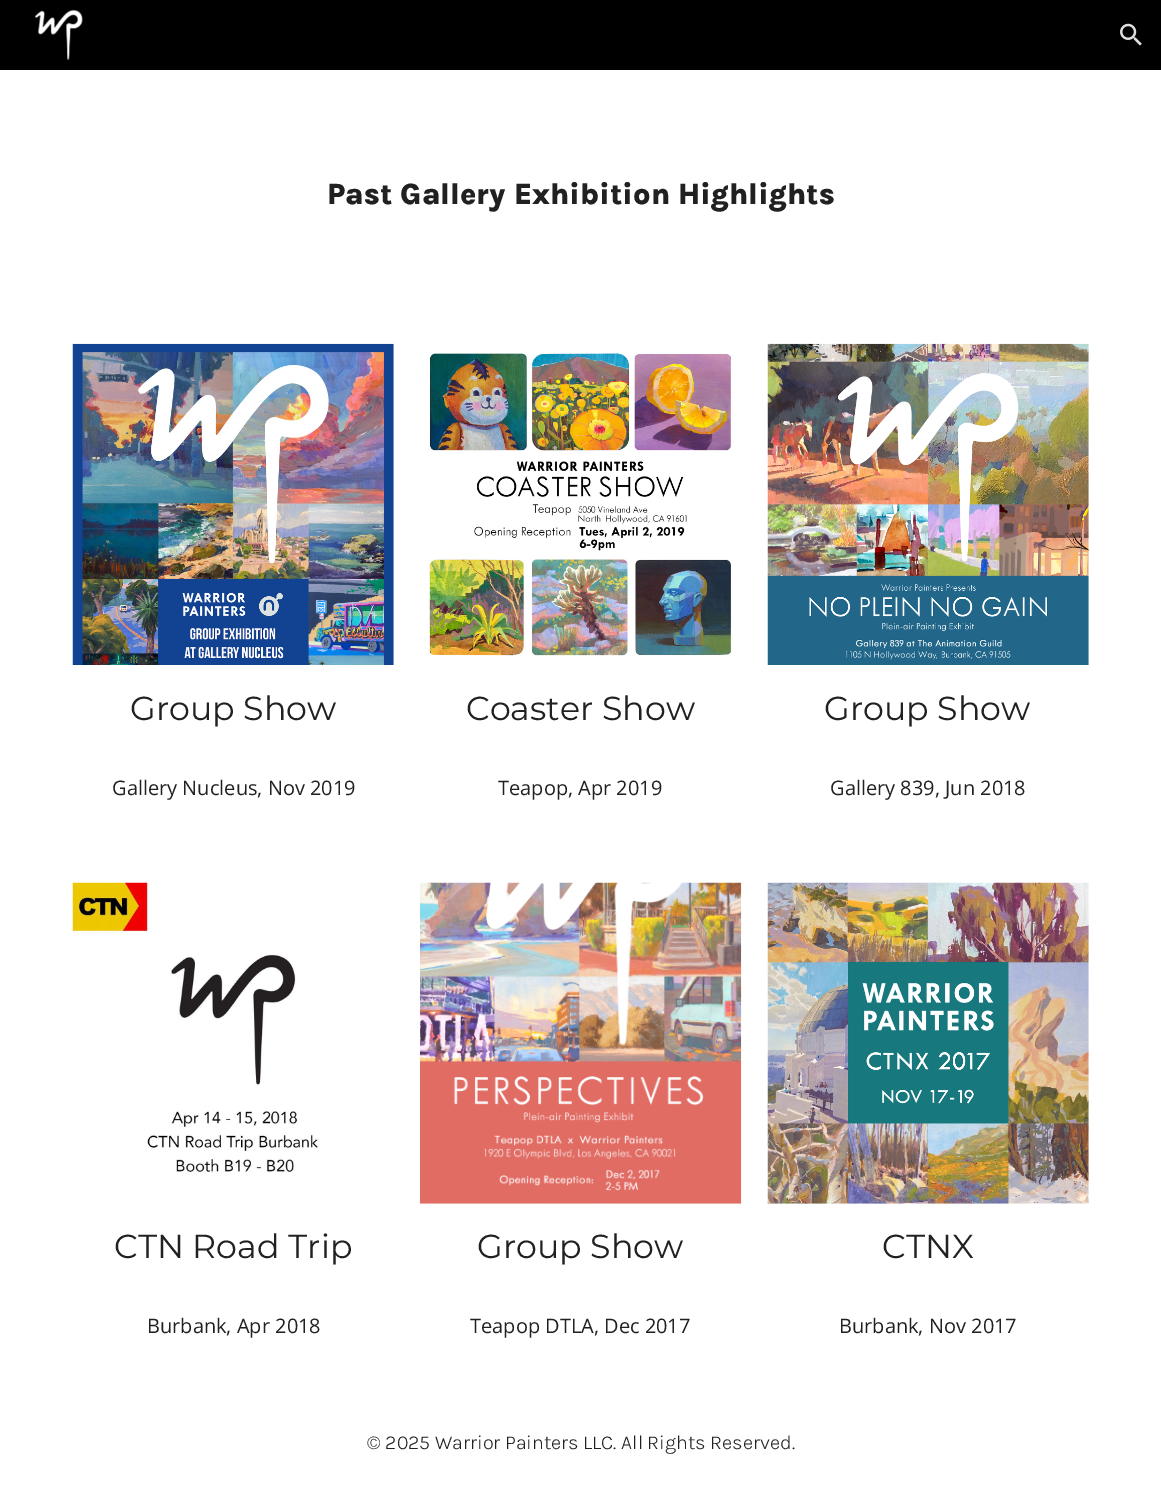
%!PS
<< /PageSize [1161 1491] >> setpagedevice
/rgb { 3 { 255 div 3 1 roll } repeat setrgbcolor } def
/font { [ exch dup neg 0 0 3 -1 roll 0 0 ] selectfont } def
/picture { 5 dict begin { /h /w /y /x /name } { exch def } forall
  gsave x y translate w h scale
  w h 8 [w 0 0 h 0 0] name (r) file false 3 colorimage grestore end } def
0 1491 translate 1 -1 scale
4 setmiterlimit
255 255 255 rgb
0 0 1161 1491 rectfill
0 0 0 rgb
0 0 1161 70 rectfill
(img/1.rgb) 34 9 49 51 picture
(img/2.rgb) 1120 23 22 23 picture
(img/3.rgb) 72 343 322 322 picture
(img/4.rgb) 428 352 305 305 picture
(img/5.rgb) 767 343 322 322 picture
(img/6.rgb) 72 882 247 291 picture
(img/7.rgb) 420 882 322 322 picture
(img/8.rgb) 767 882 322 322 picture
/Karla-ExtraBold 30 font
33 33 33 rgb
327 204 moveto (Past Gallery Exhibition Highlights) show
/Montserrat-Regular 33.25 font
130 720 moveto (Group Show) show
/OpenSans-Regular 20 font
112 795 moveto (Gallery Nucleus, Nov 2019) show
/Montserrat-Regular 33.25 font
466 720 moveto (Coaster Show) show
/OpenSans-Regular 20 font
498 795 moveto (Teapop, Apr 2019) show
/Montserrat-Regular 33.25 font
824 720 moveto (Group Show) show
/OpenSans-Regular 20 font
830 795 moveto (Gallery 839, Jun 2018) show
/Montserrat-Regular 33.25 font
114 1258 moveto (CTN Road Trip) show
/OpenSans-Regular 20 font
147 1333 moveto (Burbank, Apr 2018) show
/Montserrat-Regular 33.25 font
477 1258 moveto (Group Show) show
/OpenSans-Regular 20 font
470 1333 moveto (Teapop DTLA, Dec 2017) show
/Montserrat-Regular 33.25 font
882 1258 moveto (CTNX) show
/OpenSans-Regular 20 font
839 1333 moveto (Burbank, Nov 2017) show
/Karla-Light 20 font
367 1449 moveto (© 2025 Warrior Painters LLC. All Rights Reserved.) show
showpage
